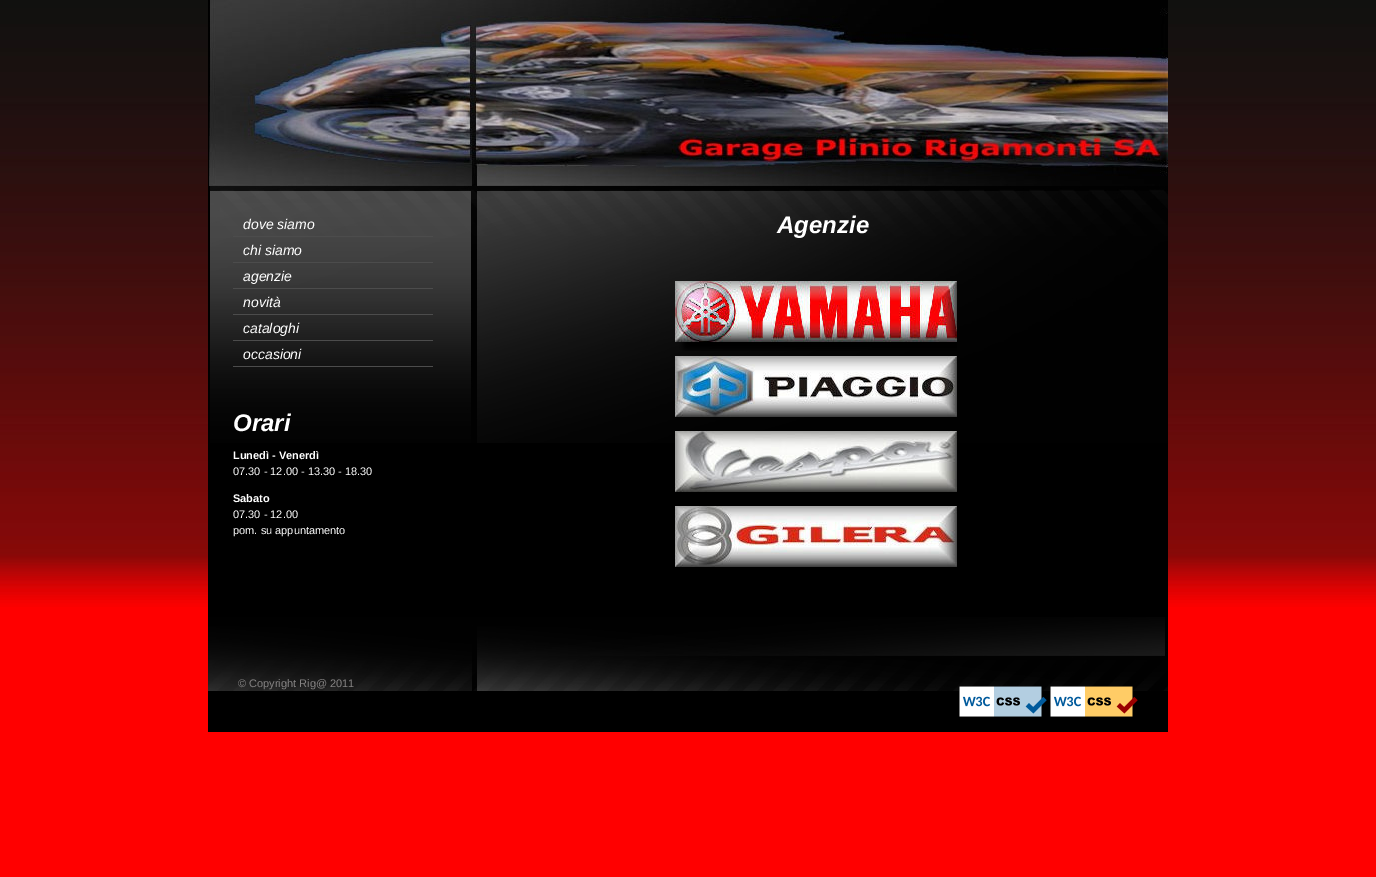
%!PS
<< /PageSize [1376 877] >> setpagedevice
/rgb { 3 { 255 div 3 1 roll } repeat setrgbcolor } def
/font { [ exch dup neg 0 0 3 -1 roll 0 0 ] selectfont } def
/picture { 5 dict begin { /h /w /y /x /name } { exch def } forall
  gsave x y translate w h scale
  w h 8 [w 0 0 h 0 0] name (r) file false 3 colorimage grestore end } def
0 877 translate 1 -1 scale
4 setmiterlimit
255 0 0 rgb
0 0 1376 877 rectfill
(img/1.rgb) 0 377 1376 230 picture
(img/2.rgb) 0 0 1376 377 picture
0 0 0 rgb
208 0 1 186 rectfill
(img/3.rgb) 209 0 959 186 picture
208 186 960 546 rectfill
(img/4.rgb) 210 186 958 257 picture
[
  [233 236 200 1 76 76 76]
  [233 262 200 1 76 76 76]
  [233 288 200 1 76 76 76]
  [233 314 200 1 76 76 76]
  [233 340 200 1 76 76 76]
  [233 366 200 1 76 76 76]
] { aload pop rgb rectfill } forall
(img/5.rgb) 675 281 282 70 picture
(img/6.rgb) 675 356 282 61 picture
(img/7.rgb) 675 431 282 61 picture
(img/8.rgb) 675 506 282 61 picture
(img/9.rgb) 208 617 960 74 picture
(img/10.rgb) 959 686 88 31 picture
(img/11.rgb) 1050 686 88 31 picture
/LiberationSans-Italic 14 font
255 255 255 rgb
[
  [(dove siamo) 243 229]
  [(chi siamo) 243 255]
  [(agenzie) 243 281]
  [(novità) 243 307]
  [(cataloghi) 243 333]
  [(occasioni) 243 359]
] { aload pop moveto show } forall
/LiberationSans-BoldItalic 24 font
233 431 moveto (Orari) show
/LiberationSans-Bold 11 font
233 459 moveto (Lunedì - Venerdì) show
/LiberationSans-Regular 11 font
233 475 moveto (07.30 - 12.00 - 13.30 - 18.30) show
/LiberationSans-Bold 11 font
233 502 moveto (Sabato) show
/LiberationSans-Regular 11 font
233 518 moveto (07.30 - 12.00) show
233 534 moveto (pom. su appuntamento) show
/LiberationSans-BoldItalic 24 font
777 233 moveto (Agenzie) show
/LiberationSans-Regular 11 font
133 131 131 rgb
238 687 moveto (© Copyright Rig@ 2011) show
showpage
